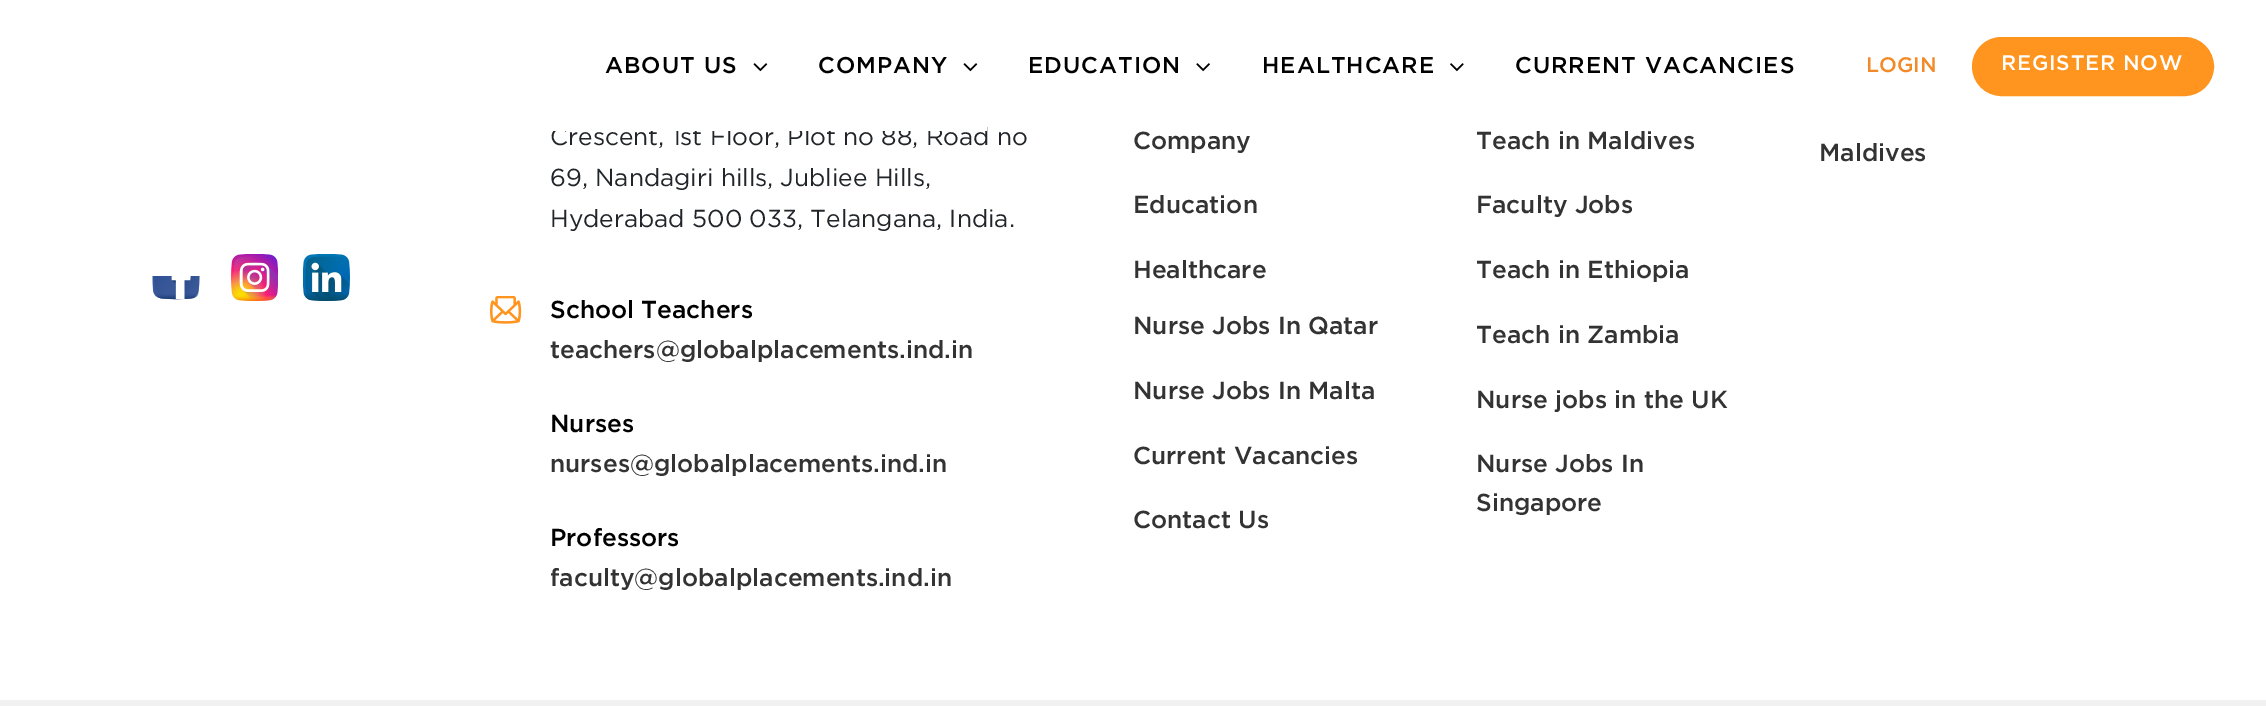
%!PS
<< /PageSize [2266 706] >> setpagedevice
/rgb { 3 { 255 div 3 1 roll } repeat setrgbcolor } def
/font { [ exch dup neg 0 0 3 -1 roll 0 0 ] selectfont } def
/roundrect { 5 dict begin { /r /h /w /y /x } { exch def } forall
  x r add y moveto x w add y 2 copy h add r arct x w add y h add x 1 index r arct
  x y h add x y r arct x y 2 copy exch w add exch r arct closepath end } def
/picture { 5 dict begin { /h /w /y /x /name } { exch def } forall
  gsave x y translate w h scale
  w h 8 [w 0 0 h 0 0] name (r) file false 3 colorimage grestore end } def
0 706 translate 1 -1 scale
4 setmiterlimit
255 255 255 rgb
0 0 2266 706 rectfill
(img/1.rgb) 753 63 15 9 picture
(img/1.rgb) 963 63 15 9 picture
(img/2.rgb) 1196 63 14 9 picture
(img/3.rgb) 1450 63 14 9 picture
255 148 31 rgb
1973 38 240 57 28.5 roundrect gsave fill grestore
2 setlinewidth
stroke
(img/4.rgb) 490 296 32 28 picture
(img/5.rgb) 152 276 48 24 picture
(img/6.rgb) 231 254 47 47 picture
(img/7.rgb) 303 254 47 47 picture
241 241 241 rgb
0 700 2266 6 rectfill
/Gotham-Medium 22.75 font
0 0 0 rgb
605 73 moveto 1 0 (ABOUT US) ashow
818 73 moveto 1 0 (COMPANY) ashow
1028 73 moveto 1 0 (EDUCATION) ashow
1262 73 moveto 1 0 (HEALTHCARE) ashow
1515 73 moveto 1 0 (CURRENT VACANCIES) ashow
/Gotham-Medium 21 font
243 138 42 rgb
1866 72 moveto (LOGIN) show
255 255 255 rgb
2001 70 moveto 0.75 0 (REGISTER NOW) ashow
/Gotham-Regular 24.5 font
33 37 41 rgb
550 145 moveto (Crescent, 1st Floor, Plot no 88, Road no) show
255 255 255 rgb
553 127 434 4 rectfill
33 37 41 rgb
550 186 moveto (69, Nandagiri hills, Jubliee Hills,) show
550 227 moveto (Hyderabad 500 033, Telangana, India.) show
/Gotham-Medium 24.5 font
0 0 0 rgb
550 318 moveto (School Teachers) show
51 51 51 rgb
550 358 moveto (teachers@globalplacements.ind.in) show
0 0 0 rgb
550 432 moveto (Nurses) show
51 51 51 rgb
550 472 moveto (nurses@globalplacements.ind.in) show
0 0 0 rgb
550 546 moveto (Professors) show
51 51 51 rgb
[
  [(faculty@globalplacements.ind.in) 550 586]
  [(Company) 1133 149]
  [(Education) 1133 213]
  [(Healthcare) 1133 278]
  [(Nurse Jobs In Qatar) 1133 334]
  [(Nurse Jobs In Malta) 1133 399]
  [(Current Vacancies) 1133 464]
  [(Contact Us) 1133 528]
  [(Teach in Maldives) 1476 149]
  [(Faculty Jobs) 1476 213]
  [(Teach in Ethiopia) 1476 278]
  [(Teach in Zambia) 1476 343]
  [(Nurse jobs in the UK) 1476 408]
  [(Nurse Jobs In) 1476 472]
  [(Singapore) 1476 511]
  [(Maldives) 1819 161]
] { aload pop moveto show } forall
showpage
